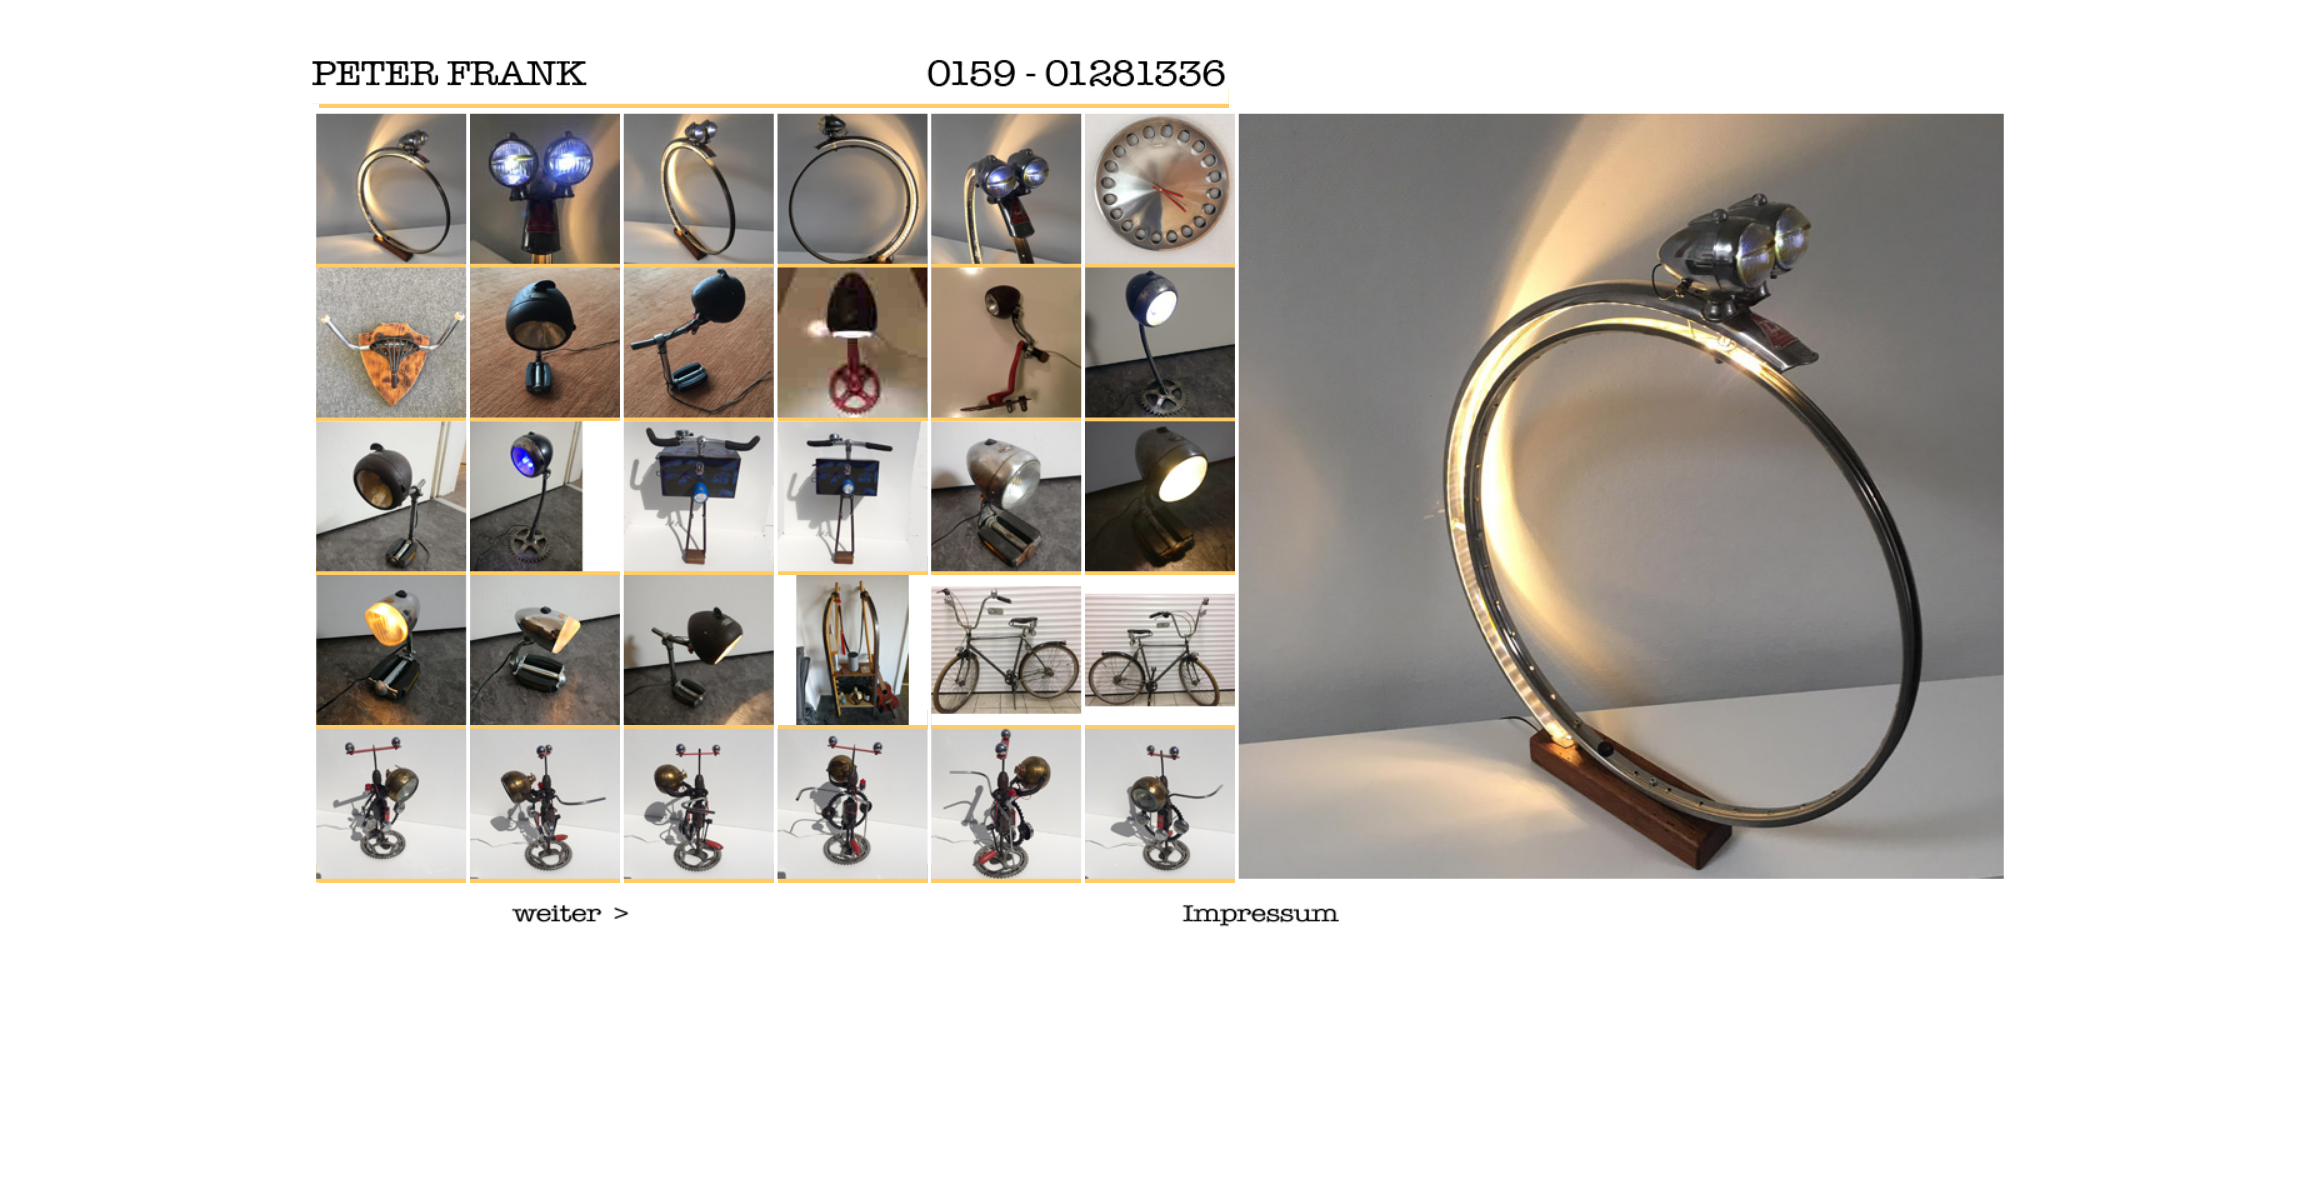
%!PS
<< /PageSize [2314 1194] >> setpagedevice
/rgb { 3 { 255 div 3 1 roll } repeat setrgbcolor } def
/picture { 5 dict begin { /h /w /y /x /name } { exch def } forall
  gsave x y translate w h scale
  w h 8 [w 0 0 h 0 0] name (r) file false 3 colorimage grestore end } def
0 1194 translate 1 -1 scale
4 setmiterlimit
255 255 255 rgb
0 0 2314 1194 rectfill
255 204 102 rgb
319 89 910 19 rectfill
(img/1.rgb) 312 59 917 45 picture
316 249 150 19 rectfill
(img/2.rgb) 316 113 151 151 picture
470 263 150 5 rectfill
(img/3.rgb) 470 113 150 151 picture
624 249 150 19 rectfill
(img/4.rgb) 623 113 151 151 picture
778 249 150 19 rectfill
(img/5.rgb) 777 113 151 151 picture
931 249 150 19 rectfill
(img/6.rgb) 931 113 151 151 picture
1085 263 150 5 rectfill
(img/7.rgb) 1085 113 150 151 picture
316 403 150 18 rectfill
(img/8.rgb) 316 267 151 151 picture
470 417 150 4 rectfill
(img/9.rgb) 470 267 150 151 picture
624 403 150 18 rectfill
(img/10.rgb) 623 267 151 151 picture
778 403 150 18 rectfill
(img/11.rgb) 777 267 151 151 picture
931 403 150 18 rectfill
(img/12.rgb) 931 267 151 151 picture
1085 417 150 4 rectfill
(img/13.rgb) 1085 267 150 151 picture
316 556 150 19 rectfill
(img/14.rgb) 316 421 151 151 picture
470 571 150 4 rectfill
(img/15.rgb) 470 421 150 151 picture
624 556 150 19 rectfill
(img/16.rgb) 623 421 151 151 picture
778 556 150 19 rectfill
(img/17.rgb) 777 421 151 151 picture
931 556 150 19 rectfill
(img/18.rgb) 931 421 151 151 picture
1085 571 150 4 rectfill
(img/19.rgb) 1085 421 150 151 picture
316 710 150 19 rectfill
(img/20.rgb) 316 575 151 150 picture
(img/21.rgb) 470 575 150 150 picture
470 725 150 4 rectfill
624 710 150 19 rectfill
(img/22.rgb) 623 575 151 150 picture
778 710 150 19 rectfill
(img/23.rgb) 778 575 150 150 picture
931 710 150 19 rectfill
(img/24.rgb) 931 586 151 139 picture
(img/25.rgb) 1085 593 150 132 picture
1085 725 150 4 rectfill
316 864 150 19 rectfill
(img/26.rgb) 316 728 151 151 picture
470 878 150 5 rectfill
(img/27.rgb) 470 728 150 151 picture
624 864 150 19 rectfill
(img/28.rgb) 623 728 151 151 picture
778 864 150 19 rectfill
(img/29.rgb) 777 728 151 151 picture
931 864 150 19 rectfill
(img/30.rgb) 931 728 151 151 picture
1085 878 150 5 rectfill
(img/31.rgb) 1085 728 150 151 picture
(img/32.rgb) 1238 113 766 766 picture
(img/33.rgb) 316 882 3 1 picture
(img/34.rgb) 511 904 828 23 picture
showpage
